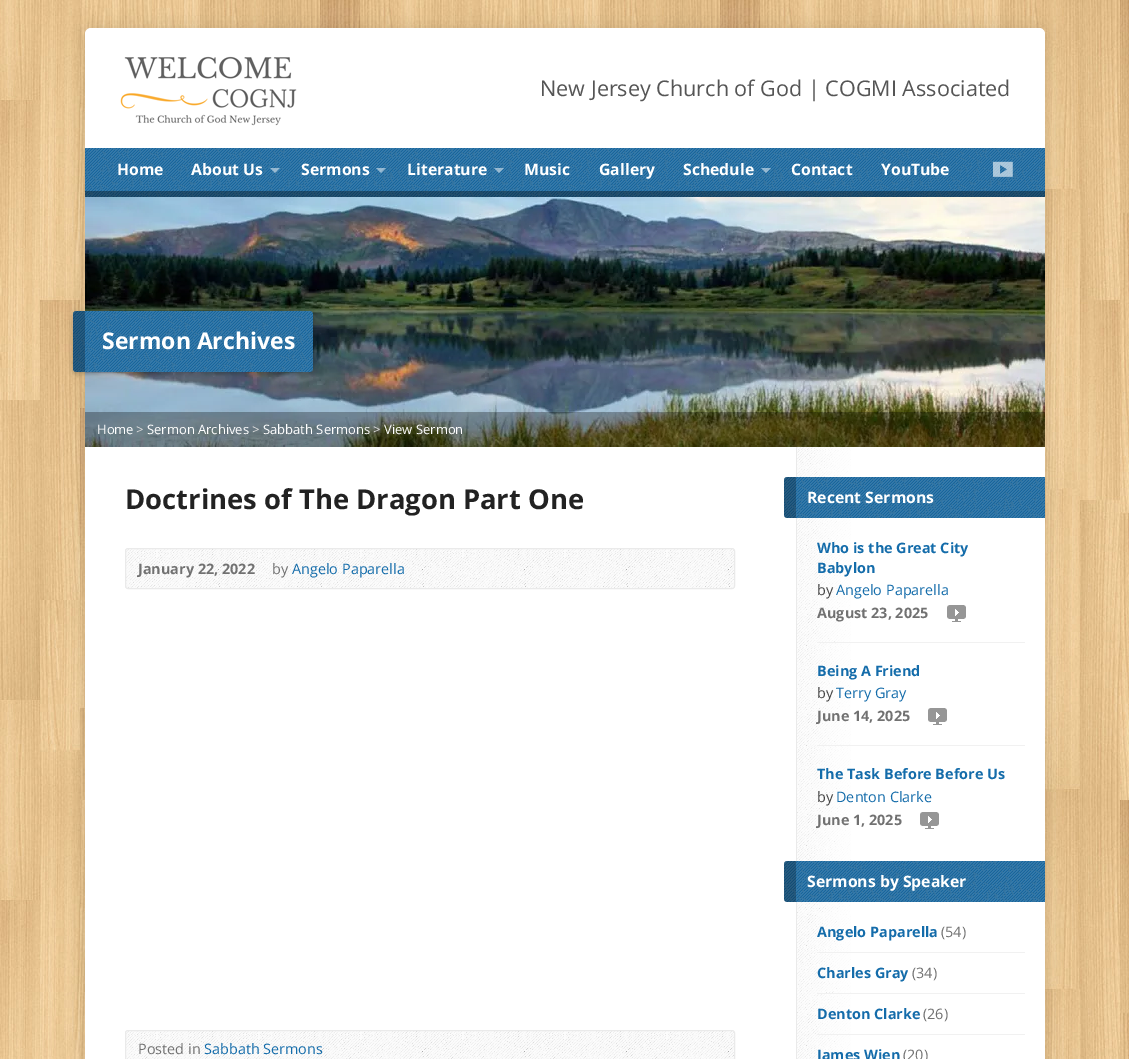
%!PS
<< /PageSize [1129 1059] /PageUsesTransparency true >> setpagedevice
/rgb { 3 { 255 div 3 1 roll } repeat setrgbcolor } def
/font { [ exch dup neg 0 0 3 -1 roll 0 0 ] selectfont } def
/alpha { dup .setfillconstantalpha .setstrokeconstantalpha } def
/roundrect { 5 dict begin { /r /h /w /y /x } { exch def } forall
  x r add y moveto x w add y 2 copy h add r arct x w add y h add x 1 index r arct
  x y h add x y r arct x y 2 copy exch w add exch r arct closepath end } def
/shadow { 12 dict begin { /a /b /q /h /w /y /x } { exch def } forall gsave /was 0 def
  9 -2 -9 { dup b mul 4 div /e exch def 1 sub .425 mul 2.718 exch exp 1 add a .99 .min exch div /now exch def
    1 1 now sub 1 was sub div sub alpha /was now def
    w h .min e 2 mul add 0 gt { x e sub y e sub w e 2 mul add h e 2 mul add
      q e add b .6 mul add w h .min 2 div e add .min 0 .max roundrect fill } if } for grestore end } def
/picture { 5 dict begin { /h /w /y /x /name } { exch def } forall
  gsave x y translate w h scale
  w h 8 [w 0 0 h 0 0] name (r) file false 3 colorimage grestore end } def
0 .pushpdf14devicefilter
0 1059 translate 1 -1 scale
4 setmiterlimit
255 255 255 rgb
0 0 1129 1059 rectfill
(img/1.rgb) 0 0 1129 1059 picture
0 0 0 rgb
85 28 960 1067 6 10 0.12 shadow
255 255 255 rgb
85 28 960 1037 6 roundrect fill
(img/2.rgb) 120 56 177 70 picture
20 108 170 rgb
85 148 960 49 rectfill
(img/3.rgb) 85 148 960 49 picture
0.5 alpha
255 255 255 rgb
270 168 moveto 280 168 lineto 275 173 lineto closepath fill
376 168 moveto 386 168 lineto 381 173 lineto closepath fill
494 168 moveto 504 168 lineto 499 173 lineto closepath fill
761 168 moveto 771 168 lineto 766 173 lineto closepath fill
1 alpha
(img/4.rgb) 993 161 20 16 picture
0.35 alpha
0 0 0 rgb
85 191 960 6 rectfill
1 alpha
(img/5.rgb) 85 197 960 250 picture
73 313 240 61 3 2.5 0.24 shadow
20 108 170 rgb
73 311 240 61 3 roundrect fill
(img/6.rgb) 73 311 240 61 picture
0.3 alpha
0 0 0 rgb
85 412 960 35 rectfill
1 alpha
(img/7.rgb) 125 548 610 41 picture
234 234 234 rgb
125.5 548.5 609 40 2.5 roundrect stroke
(img/8.rgb) 125 1030 610 29 picture
125.5 1030.5 609 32 2.5 roundrect stroke
(img/9.rgb) 797 447 54 612 picture
796 447 1 612 rectfill
20 108 170 rgb
787 477 moveto 1045 477 lineto 1045 518 lineto 787 518 lineto 785.5 518 784 516.5 784 515 curveto 784 480 lineto 784 478.5 785.5 477 787 477 curveto closepath fill
(img/10.rgb) 784 477 261 41 picture
(img/11.rgb) 947 605 19 17 picture
241 241 241 rgb
817 642 208 1 rectfill
(img/11.rgb) 928 708 19 17 picture
817 745 208 1 rectfill
(img/11.rgb) 920 812 19 17 picture
20 108 170 rgb
787 861 moveto 1045 861 lineto 1045 902 lineto 787 902 lineto 785.5 902 784 900.5 784 899 curveto 784 864 lineto 784 862.5 785.5 861 787 861 curveto closepath fill
(img/10.rgb) 784 861 261 41 picture
[
  [817 952 208 1 241 241 241]
  [817 993 208 1 241 241 241]
  [817 1034 208 1 241 241 241]
] { aload pop rgb rectfill } forall
/OpenSans-Regular 21.6 font
85 85 85 rgb
540 96 moveto (New Jersey Church of God | COGMI Associated) show
/OpenSans-Bold 15.75 font
255 255 255 rgb
[
  [(Home) 117 175]
  [(About Us) 191 175]
  [(Sermons) 301 175]
  [(Literature) 407 175]
  [(Music) 524 175]
  [(Gallery) 599 175]
  [(Schedule) 683 175]
  [(Contact) 791 175]
  [(YouTube) 881 175]
] { aload pop moveto show } forall
/OpenSans-Bold 23 font
102 349 moveto (Sermon Archives) show
/OpenSans-Regular 13 font
97 434 moveto (Home) show
221 221 221 rgb
136 434 moveto (>) show
255 255 255 rgb
147 434 moveto (Sermon Archives) show
221 221 221 rgb
252 434 moveto (>) show
255 255 255 rgb
263 434 moveto (Sabbath Sermons) show
221 221 221 rgb
373 434 moveto (>) show
255 255 255 rgb
384 434 moveto (View Sermon) show
/OpenSans-Bold 27.4 font
34 34 34 rgb
125 509 moveto (Doctrines of The Dragon Part One) show
/OpenSans-Bold 14.4 font
113 113 113 rgb
138 574 moveto (January 22, 2022) show
/OpenSans-Regular 14.4 font
272 574 moveto (by) show
20 108 170 rgb
292 574 moveto (Angelo Paparella) show
113 113 113 rgb
138 1054 moveto (Posted in) show
20 108 170 rgb
204 1054 moveto (Sabbath Sermons) show
/OpenSans-Bold 15.75 font
255 255 255 rgb
807 503 moveto (Recent Sermons) show
/OpenSans-Bold 14.4 font
20 108 170 rgb
817 553 moveto (Who is the Great City) show
817 573 moveto (Babylon) show
/OpenSans-Regular 14.4 font
68 68 68 rgb
817 595 moveto (by) show
20 108 170 rgb
836 595 moveto (Angelo Paparella) show
/OpenSans-Bold 14.4 font
113 113 113 rgb
817 618 moveto (August 23, 2025) show
20 108 170 rgb
817 676 moveto (Being A Friend) show
/OpenSans-Regular 14.4 font
68 68 68 rgb
817 698 moveto (by) show
20 108 170 rgb
836 698 moveto (Terry Gray) show
/OpenSans-Bold 14.4 font
113 113 113 rgb
817 721 moveto (June 14, 2025) show
20 108 170 rgb
817 779 moveto (The Task Before Before Us) show
/OpenSans-Regular 14.4 font
68 68 68 rgb
817 802 moveto (by) show
20 108 170 rgb
836 802 moveto (Denton Clarke) show
/OpenSans-Bold 14.4 font
113 113 113 rgb
817 825 moveto (June 1, 2025) show
/OpenSans-Bold 15.75 font
255 255 255 rgb
807 887 moveto (Sermons by Speaker) show
/OpenSans-Bold 14.4 font
20 108 170 rgb
817 937 moveto (Angelo Paparella) show
/OpenSans-Regular 14.4 font
113 113 113 rgb
941 937 moveto (\(54\)) show
/OpenSans-Bold 14.4 font
20 108 170 rgb
817 978 moveto (Charles Gray) show
/OpenSans-Regular 14.4 font
113 113 113 rgb
912 978 moveto (\(34\)) show
/OpenSans-Bold 14.4 font
20 108 170 rgb
817 1019 moveto (Denton Clarke) show
/OpenSans-Regular 14.4 font
113 113 113 rgb
923 1019 moveto (\(26\)) show
/OpenSans-Bold 14.4 font
20 108 170 rgb
817 1060 moveto (James Wien) show
/OpenSans-Regular 14.4 font
113 113 113 rgb
903 1060 moveto (\(20\)) show
.poppdf14devicefilter showpage
